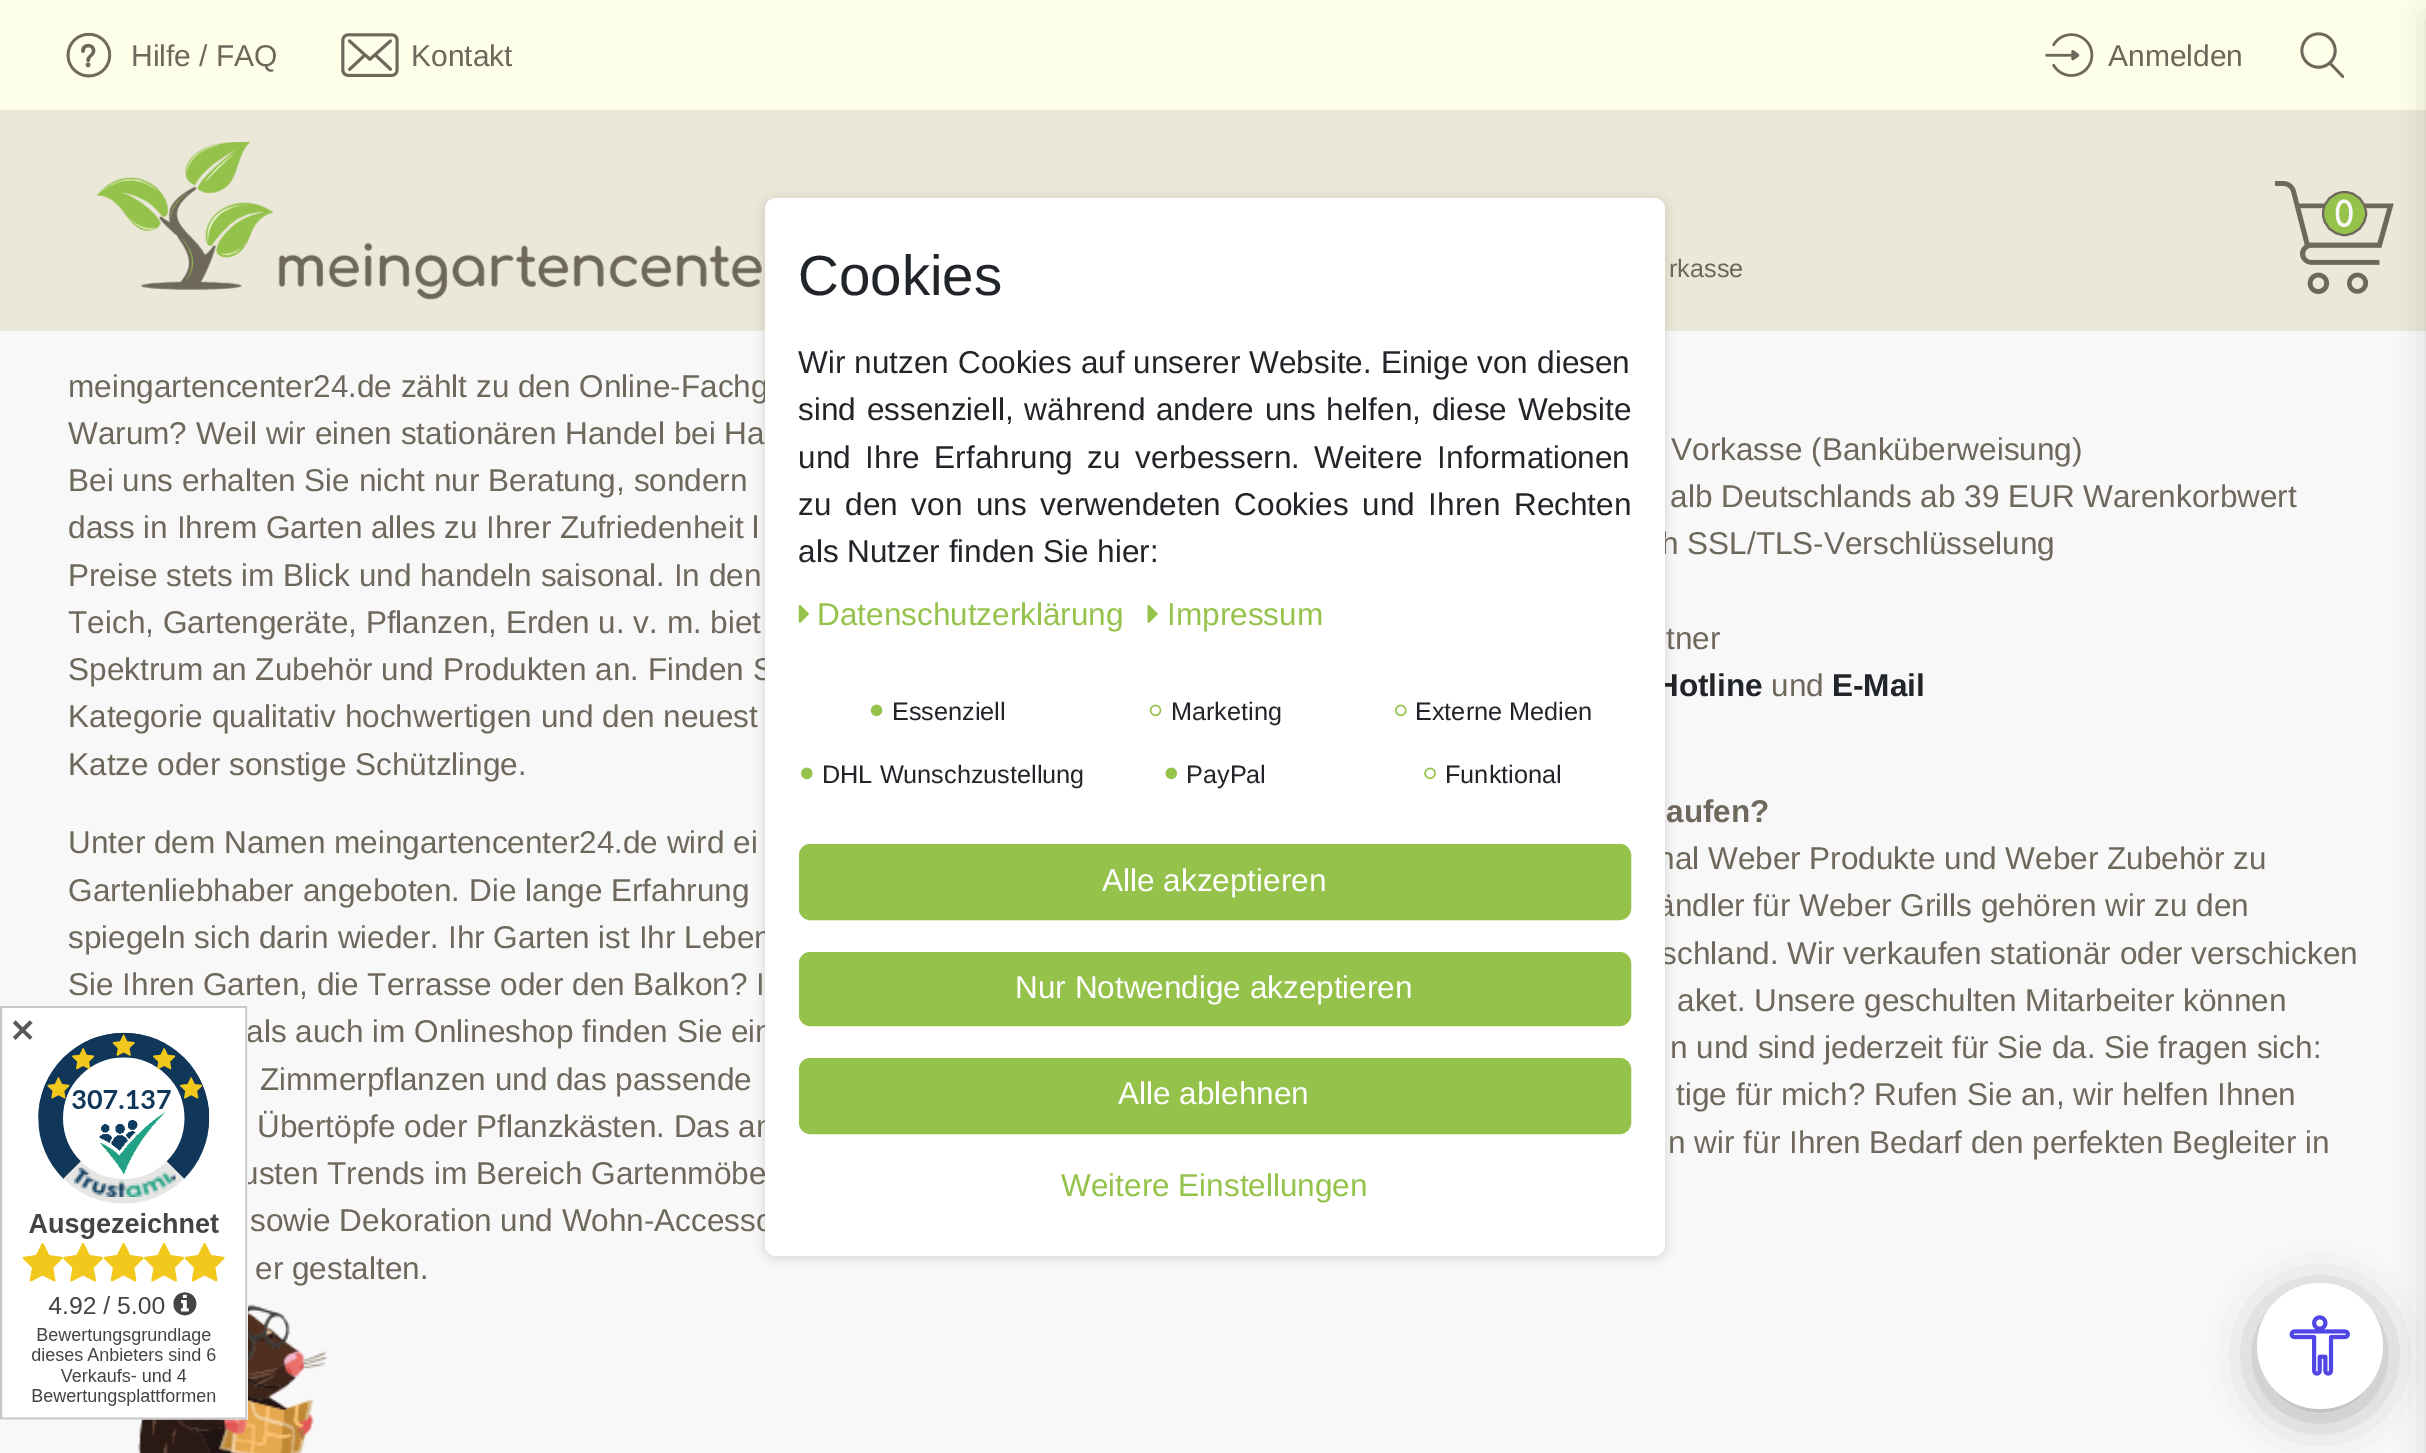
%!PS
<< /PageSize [2426 1453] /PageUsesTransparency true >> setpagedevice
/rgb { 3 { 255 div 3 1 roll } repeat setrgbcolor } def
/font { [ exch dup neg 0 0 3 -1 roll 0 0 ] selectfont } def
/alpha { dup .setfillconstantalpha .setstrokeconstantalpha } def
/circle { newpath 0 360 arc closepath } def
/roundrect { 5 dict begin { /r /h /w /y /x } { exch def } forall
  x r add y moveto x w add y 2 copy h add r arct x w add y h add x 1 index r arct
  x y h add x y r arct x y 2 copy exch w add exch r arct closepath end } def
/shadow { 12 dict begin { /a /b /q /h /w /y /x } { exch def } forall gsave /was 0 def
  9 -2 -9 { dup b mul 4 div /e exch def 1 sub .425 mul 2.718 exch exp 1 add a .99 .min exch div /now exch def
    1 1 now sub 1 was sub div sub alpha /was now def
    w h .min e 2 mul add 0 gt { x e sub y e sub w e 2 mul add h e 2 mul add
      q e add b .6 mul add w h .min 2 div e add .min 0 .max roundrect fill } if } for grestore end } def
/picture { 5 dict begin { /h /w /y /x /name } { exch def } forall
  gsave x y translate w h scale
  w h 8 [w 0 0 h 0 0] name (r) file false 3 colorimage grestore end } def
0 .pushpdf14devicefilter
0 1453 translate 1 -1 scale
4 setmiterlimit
248 248 248 rgb
0 0 2426 1453 rectfill
254 255 232 rgb
0 0 2426 110 rectfill
(img/1.rgb) 66 32 46 46 picture
(img/2.rgb) 341 33 58 44 picture
(img/3.rgb) 2045 33 49 44 picture
(img/4.rgb) 2300 32 45 46 picture
235 231 217 rgb
0 110 2426 221 rectfill
(img/5.rgb) 97 142 665 158 picture
(img/6.rgb) 2274 181 120 113 picture
148 194 74 rgb
2344.5 213.5 21.5 circle gsave fill grestore
110 103 92 rgb
2 setlinewidth
stroke
0 0 0 rgb
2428 16 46 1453 0 16 0.15 shadow
(img/7.rgb) 137 1304 191 149 picture
179 176 170 rgb
5 setlinewidth
2277.5 1298.5 85 90 8.5 roundrect stroke
0 0 0 rgb
765 200 900 1058 11 5.5 0.15 shadow
2257 1292 126 126 63 22.5 0.3 shadow
255 255 255 rgb
2320 1346 63 circle fill
(img/17.rgb) 2289 1315 61 61 picture
/LiberationSans-Regular 30 font
110 103 92 rgb
[
  [(Hilfe / FAQ) 131 66]
  [(Kontakt) 411 66]
  [(Anmelden) 2108 66]
] { aload pop moveto show } forall
/Comfortaa-Bold 34 font
248 248 248 rgb
2334 227 moveto (0) show
/LiberationSans-Regular 25.25 font
110 103 92 rgb
1669 277 moveto (rkasse) show
/LiberationSans-Regular 31.5 font
[
  [(meingartencenter24.de zählt zu den Online-Fachg) 68 397]
  [(Warum? Weil wir einen stationären Handel bei Ha) 68 444]
  [(Bei uns erhalten Sie nicht nur Beratung, sondern) 68 491]
  [(dass in Ihrem Garten alles zu Ihrer Zufriedenheit l) 68 538]
  [(Preise stets im Blick und handeln saisonal. In den) 68 586]
  [(Teich, Gartengeräte, Pflanzen, Erden u. v. m. biet) 68 633]
  [(Spektrum an Zubehör und Produkten an. Finden S) 68 680]
  [(Kategorie qualitativ hochwertigen und den neuest) 68 727]
  [(Katze oder sonstige Schützlinge.) 68 775]
  [(Unter dem Namen meingartencenter24.de wird ei) 68 853]
  [(Gartenliebhaber angeboten. Die lange Erfahrung) 68 901]
  [(spiegeln sich darin wieder. Ihr Garten ist Ihr Leben) 68 948]
  [(Sie Ihren Garten, die Terrasse oder den Balkon? I) 68 995]
  [(als auch im Onlineshop finden Sie ein) 246 1042]
  [(Zimmerpflanzen und das passende) 260 1090]
  [(Übertöpfe oder Pflanzkästen. Das an) 257 1137]
  [(usten Trends im Bereich Gartenmöbe) 241 1184]
  [(sowie Dekoration und Wohn-Accesso) 250 1231]
  [(er gestalten.) 255 1279]
  [(Vorkasse \(Banküberweisung\)) 1671 460]
  [(alb Deutschlands ab 39 EUR Warenkorbwert) 1670 507]
  [(h SSL/TLS-Verschlüsselung) 1661 554]
  [(tner) 1666 649]
] { aload pop moveto show } forall
/LiberationSans-Bold 31.5 font
33 37 41 rgb
1656 696 moveto (Hotline) show
/LiberationSans-Regular 31.5 font
110 103 92 rgb
1771 696 moveto (und) show
/LiberationSans-Bold 31.5 font
33 37 41 rgb
1832 696 moveto (E-Mail) show
110 103 92 rgb
1666 822 moveto (aufen?) show
/LiberationSans-Regular 31.5 font
[
  [(nal Weber Produkte und Weber Zubehör zu) 1657 869]
  [(ändler für Weber Grills gehören wir zu den) 1657 916]
  [(schland. Wir verkaufen stationär oder verschicken) 1661 964]
  [(aket. Unsere geschulten Mitarbeiter können) 1677 1011]
  [(n und sind jederzeit für Sie da. Sie fragen sich:) 1670 1058]
  [(tige für mich? Rufen Sie an, wir helfen Ihnen) 1676 1105]
  [(n wir für Ihren Bedarf den perfekten Begleiter in) 1668 1153]
] { aload pop moveto show } forall
(img/8.rgb) 0 1006 248 414 picture
/DejaVuSans-Bold 31.5 font
89 89 89 rgb
9 1042 moveto (✕) show
255 255 255 rgb
765 198 900 1058 11 roundrect fill
/LiberationSans-Regular 56.5 font
33 37 41 rgb
798 295 moveto (Cookies) show
/LiberationSans-Regular 31.5 font
798 373 moveto 0.25 0 32 (Wir nutzen Cookies auf unserer Website. Einige von diesen) widthshow
798 420 moveto 2 0 32 (sind essenziell, während andere uns helfen, diese Website) widthshow
798 468 moveto 6 0 32 (und Ihre Erfahrung zu verbessern.) widthshow
1314 468 moveto 6 0 32 (Weitere Informationen) widthshow
798 515 moveto 5 0 32 (zu den von uns verwendeten Cookies und Ihren Rechten) widthshow
798 562 moveto (als Nutzer finden Sie hier:) show
(img/9.rgb) 798 605 11 18 picture
148 194 74 rgb
817 625 moveto (Datenschutzerklärung) show
(img/10.rgb) 1147 604 11 19 picture
1167 625 moveto (Impressum) show
(img/11.rgb) 870 704 13 13 picture
/LiberationSans-Regular 25.25 font
33 37 41 rgb
892 720 moveto (Essenziell) show
(img/12.rgb) 1149 704 13 13 picture
1171 720 moveto (Marketing) show
(img/13.rgb) 1395 704 12 13 picture
1415 720 moveto (Externe Medien) show
(img/14.rgb) 801 767 12 13 picture
822 783 moveto (DHL Wunschzustellung) show
(img/15.rgb) 1165 767 13 13 picture
1186 783 moveto (PayPal) show
(img/16.rgb) 1424 767 12 13 picture
1445 783 moveto (Funktional) show
148 194 74 rgb
800 845 830 74 10 roundrect gsave fill grestore
2 setlinewidth
stroke
/LiberationSans-Regular 31.5 font
255 255 255 rgb
1102 891 moveto (Alle akzeptieren) show
148 194 74 rgb
800 953 830 72 10 roundrect gsave fill grestore
stroke
255 255 255 rgb
1015 998 moveto (Nur Notwendige akzeptieren) show
148 194 74 rgb
800 1059 830 74 10 roundrect gsave fill grestore
stroke
255 255 255 rgb
1118 1104 moveto (Alle ablehnen) show
148 194 74 rgb
1061 1196 moveto (Weitere Einstellungen) show
.poppdf14devicefilter showpage
